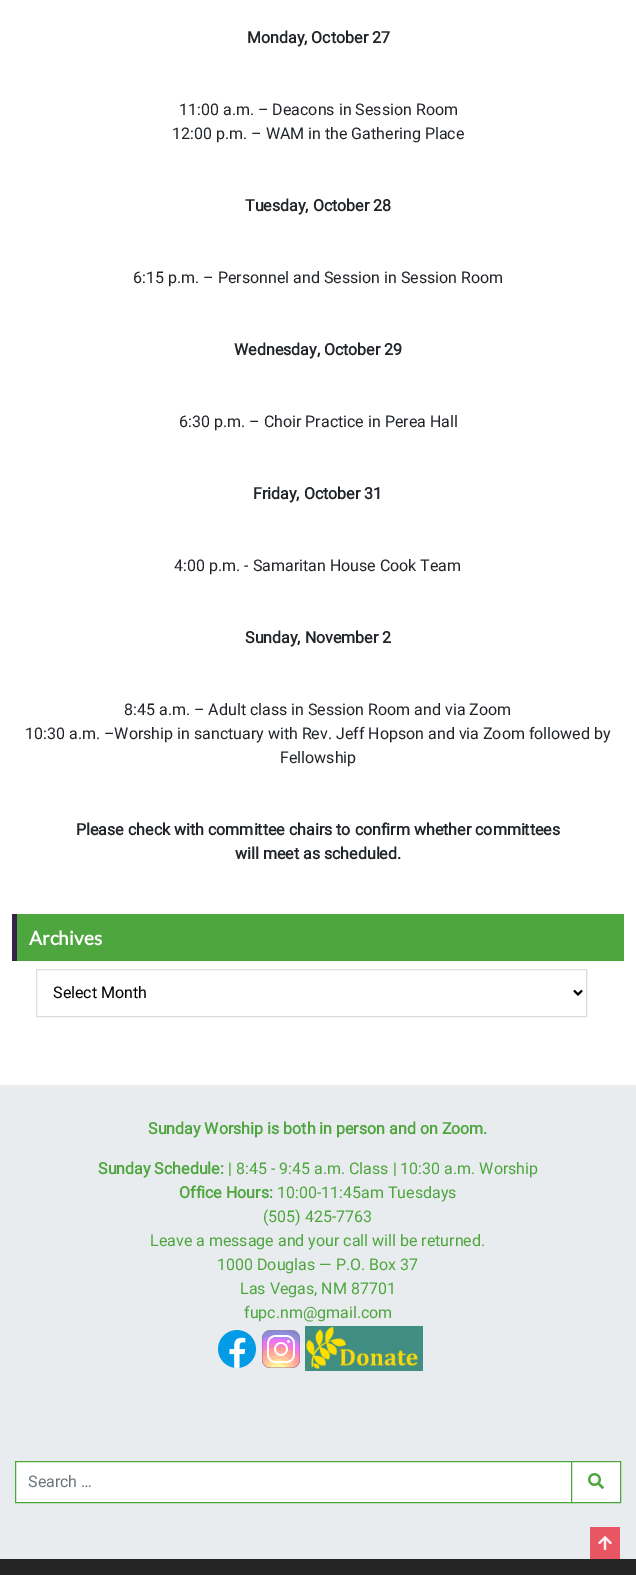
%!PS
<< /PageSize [636 1575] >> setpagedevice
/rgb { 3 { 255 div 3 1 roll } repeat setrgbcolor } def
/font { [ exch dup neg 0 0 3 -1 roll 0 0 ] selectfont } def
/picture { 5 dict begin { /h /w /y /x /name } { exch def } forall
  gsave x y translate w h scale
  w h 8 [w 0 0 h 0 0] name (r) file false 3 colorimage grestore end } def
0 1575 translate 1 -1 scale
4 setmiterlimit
255 255 255 rgb
0 0 636 1575 rectfill
78 166 62 rgb
17 914 607 47 rectfill
55 34 72 rgb
12 914 5 47 rectfill
223 221 217 rgb
36.5 969.5 550 47 rectstroke
0 0 0 rgb
2 setlinewidth
574 990.5 moveto 578 994.5 lineto 582 990.5 lineto stroke
233 236 239 rgb
0 1085 636 474 rectfill
(img/1.rgb) 218 1330 38 38 picture
(img/2.rgb) 262 1330 38 38 picture
(img/3.rgb) 305 1326 118 45 picture
255 255 255 rgb
15.5 1461.5 moveto 571.5 1461.5 lineto 571.5 1502.5 lineto 15.5 1502.5 lineto closepath gsave fill grestore
78 166 62 rgb
1 setlinewidth
stroke
255 255 255 rgb
571.5 1461.5 moveto 620.5 1461.5 lineto 620.5 1502.5 lineto 571.5 1502.5 lineto closepath gsave fill grestore
78 166 62 rgb
stroke
(img/4.rgb) 588 1473 16 16 picture
37 37 37 rgb
0 1559 636 16 rectfill
232 86 99 rgb
590 1527 30 32 rectfill
(img/5.rgb) 598 1536 14 14 picture
/Roboto-Bold 16 font
33 37 41 rgb
247 43 moveto (Monday, October 27) show
/Roboto-Regular 16 font
179 115 moveto (11:00 a.m. – Deacons in Session Room) show
172 139 moveto (12:00 p.m. – WAM in the Gathering Place) show
/Roboto-Bold 16 font
245 211 moveto (Tuesday, October 28) show
/Roboto-Regular 16 font
133 283 moveto (6:15 p.m. – Personnel and Session in Session Room) show
/Roboto-Bold 16 font
234 355 moveto (Wednesday, October 29) show
/Roboto-Regular 16 font
179 427 moveto (6:30 p.m. – Choir Practice in Perea Hall) show
/Roboto-Bold 16 font
253 499 moveto (Friday, October 31) show
/Roboto-Regular 16 font
174 571 moveto (4:00 p.m. - Samaritan House Cook Team) show
/Roboto-Bold 16 font
245 643 moveto (Sunday, November 2) show
/Roboto-Regular 16 font
[
  [(8:45 a.m. – Adult class in Session Room and via Zoom) 124 715]
  [(10:30 a.m. –Worship in sanctuary with Rev. Jeff Hopson and via Zoom followed by) 25 739]
  [(Fellowship) 280 763]
] { aload pop moveto show } forall
/Roboto-Bold 16 font
76 835 moveto (Please check with committee chairs to confirm whether committees) show
235 859 moveto (will meet as scheduled.) show
/Lato-Bold 19 font
255 255 255 rgb
29 945 moveto (Archives) show
/Roboto-Regular 16 font
0 0 0 rgb
53 998 moveto (Select Month) show
/Roboto-Bold 16 font
78 166 62 rgb
148 1134 moveto (Sunday Worship is both in person and on Zoom.) show
98 1174 moveto (Sunday Schedule:) show
/Roboto-Regular 16 font
228 1174 moveto (| 8:45 - 9:45 a.m. Class | 10:30 a.m. Worship) show
/Roboto-Bold 16 font
179 1198 moveto (Office Hours:) show
/Roboto-Regular 16 font
[
  [(10:00-11:45am Tuesdays) 277 1198]
  [(\(505\) 425-7763) 263 1222]
  [(Leave a message and your call will be returned.) 150 1246]
  [(1000 Douglas — P.O. Box 37) 217 1270]
  [(Las Vegas, NM 87701) 240 1294]
  [(fupc.nm@gmail.com) 244 1318]
] { aload pop moveto show } forall
108 117 125 rgb
28 1487 moveto (Search …) show
showpage
